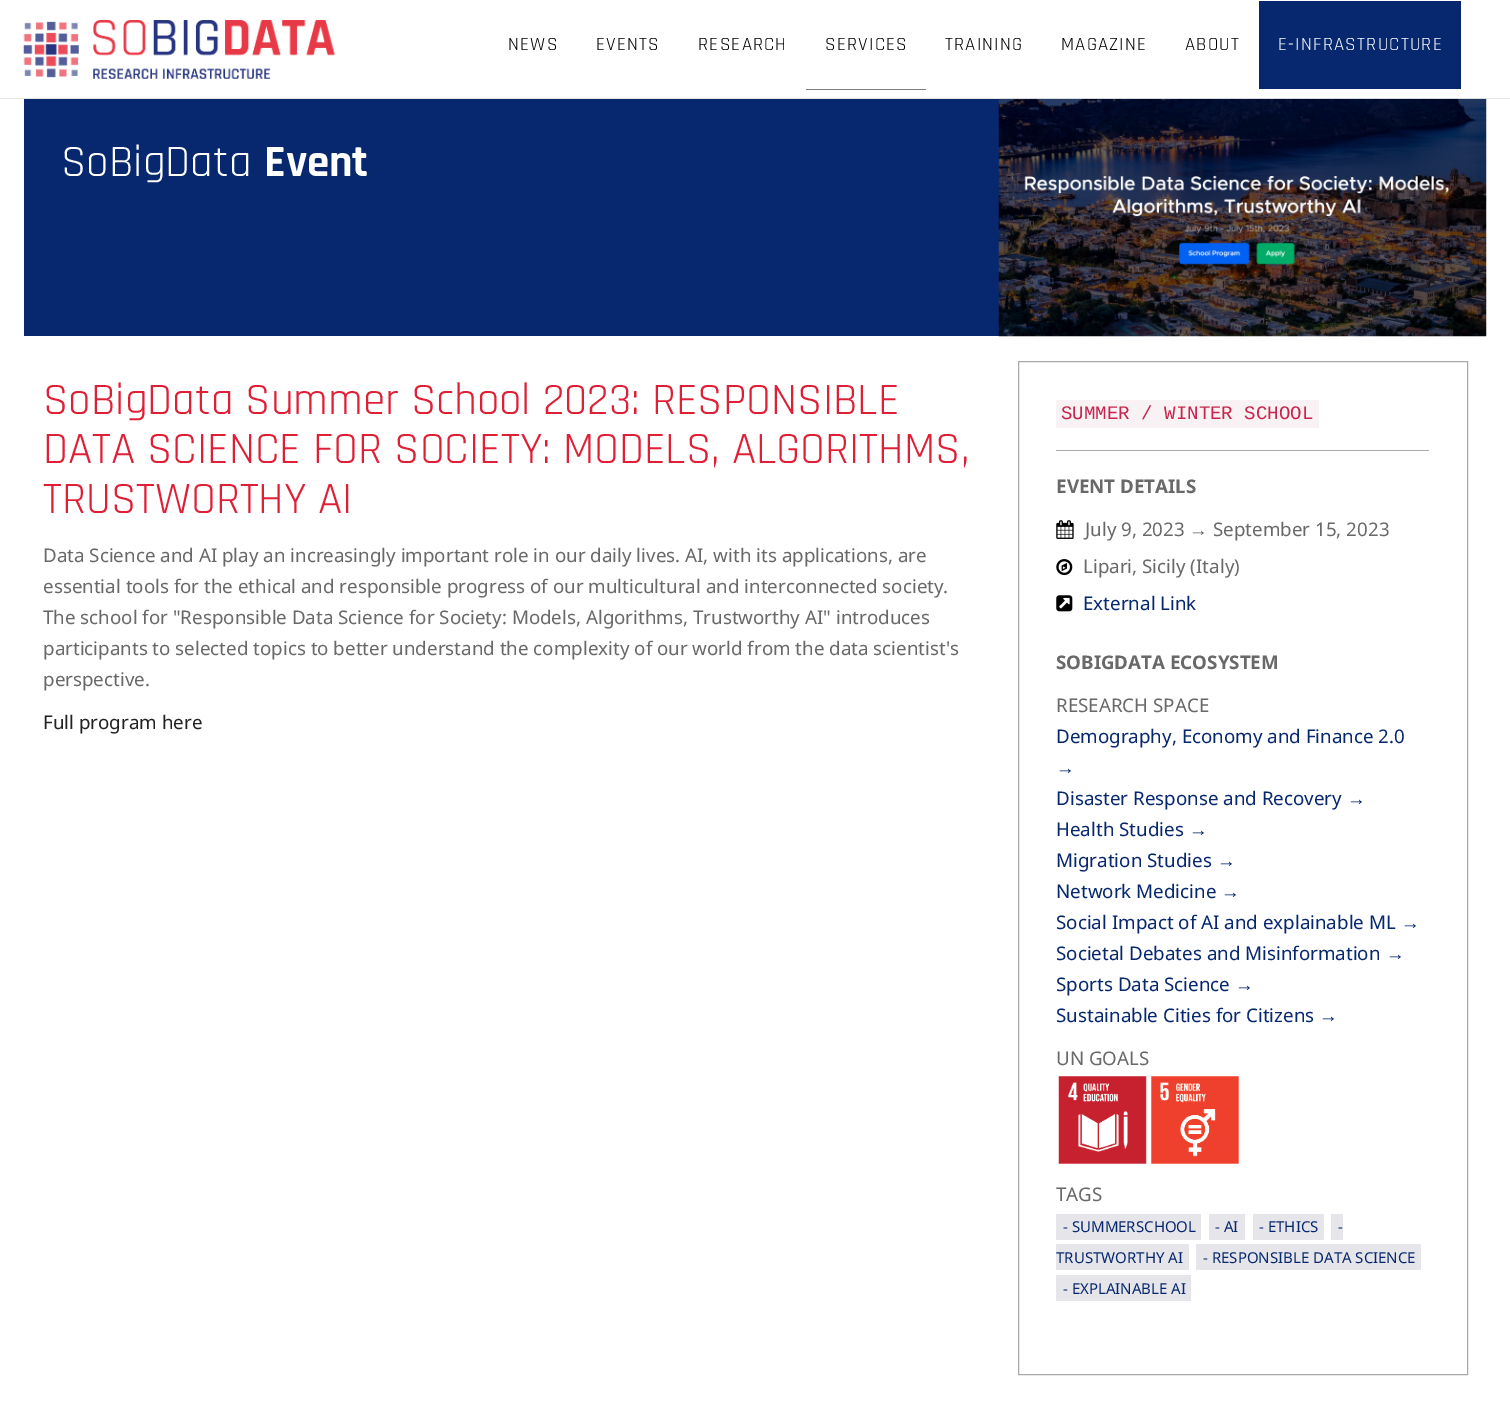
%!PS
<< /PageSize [1510 1410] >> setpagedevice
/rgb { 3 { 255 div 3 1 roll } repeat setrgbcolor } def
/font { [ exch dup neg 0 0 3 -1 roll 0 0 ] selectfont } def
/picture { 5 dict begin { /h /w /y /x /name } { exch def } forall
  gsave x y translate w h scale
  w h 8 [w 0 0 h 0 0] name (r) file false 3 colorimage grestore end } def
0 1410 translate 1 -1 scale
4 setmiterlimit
255 255 255 rgb
0 0 1510 1410 rectfill
230 230 230 rgb
0 98 1510 1 rectfill
(img/1.rgb) 23 20 312 59 picture
[
  [806 89 120 1 128 128 128]
  [1259 1 202 88 7 40 110]
  [24 99 975 237 7 40 110]
] { aload pop rgb rectfill } forall
(img/2.rgb) 998 98 489 239 picture
170 170 170 rgb
1018.5 361.5 449 1013 rectstroke
1056 450 373 1 rectfill
249 242 244 rgb
1056 400 263 28 rectfill
(img/3.rgb) 1056 520 18 19 picture
(img/4.rgb) 1056 559 17 17 picture
(img/5.rgb) 1056 595 17 17 picture
(img/6.rgb) 1058 1076 89 88 picture
(img/7.rgb) 1151 1076 88 88 picture
[
  [1056 1214 145 26 230 230 234]
  [1209 1214 36 26 230 230 234]
  [1253 1214 71 26 230 230 234]
  [1331 1214 12 26 230 230 234]
  [1056 1244 133 26 230 230 234]
  [1196 1244 225 26 230 230 234]
  [1056 1275 135 26 230 230 234]
] { aload pop rgb rectfill } forall
/Rajdhani-Regular 18.75 font
0 0 0 rgb
508 50 moveto 1.25 0 (NEWS) ashow
596 50 moveto 1.25 0 (EVENTS) ashow
698 50 moveto 1.25 0 (RESEARCH) ashow
825 50 moveto 1.25 0 (SERVICES) ashow
945 50 moveto 1.25 0 (TRAINING) ashow
1061 50 moveto 1.25 0 (MAGAZINE) ashow
1185 50 moveto 1.25 0 (ABOUT) ashow
255 255 255 rgb
1278 50 moveto 1.25 0 (E-INFRASTRUCTURE) ashow
/Rajdhani-Regular 45 font
61 176 moveto (SoBigData) show
/Rajdhani-Bold 45 font
264 176 moveto (Event) show
/Rajdhani-Regular 45 font
222 31 54 rgb
[
  [(SoBigData Summer School 2023: RESPONSIBLE) 43 414]
  [(DATA SCIENCE FOR SOCIETY: MODELS, ALGORITHMS,) 43 463]
  [(TRUSTWORTHY AI) 43 513]
] { aload pop moveto show } forall
/NotoSans-Regular 18.75 font
105 105 105 rgb
[
  [(Data Science and AI play an increasingly important role in our daily lives. AI, with its applications, are) 43 562]
  [(essential tools for the ethical and responsible progress of our multicultural and interconnected society.) 43 593]
  [(The school for "Responsible Data Science for Society: Models, Algorithms, Trustworthy AI" introduces) 43 624]
  [(participants to selected topics to better understand the complexity of our world from the data scientist's) 43 655]
  [(perspective.) 43 686]
] { aload pop moveto show } forall
34 34 34 rgb
43 729 moveto (Full program here) show
/LiberationMono-Regular 19.1 font
199 37 78 rgb
1061 419 moveto (SUMMER / WINTER SCHOOL) show
/NotoSans-Bold 18.75 font
105 105 105 rgb
1056 493 moveto (EVENT DETAILS) show
/NotoSans-Regular 18.75 font
1085 536 moveto (July 9, 2023) show
/LiberationSerif-Regular 18.75 font
1189 536 moveto (→) show
/NotoSans-Regular 18.75 font
1213 536 moveto (September 15, 2023) show
1083 573 moveto (Lipari, Sicily \(Italy\)) show
7 40 110 rgb
1083 610 moveto (External Link) show
/NotoSans-Bold 18.75 font
105 105 105 rgb
1056 669 moveto (SOBIGDATA ECOSYSTEM) show
/NotoSans-Regular 18.75 font
1056 712 moveto (RESEARCH SPACE) show
7 40 110 rgb
1056 743 moveto (Demography, Economy and Finance 2.0) show
/LiberationSerif-Regular 18.75 font
1056 774 moveto (→) show
/NotoSans-Regular 18.75 font
1056 805 moveto (Disaster Response and Recovery) show
/LiberationSerif-Regular 18.75 font
1347 805 moveto (→) show
/NotoSans-Regular 18.75 font
1056 836 moveto (Health Studies) show
/LiberationSerif-Regular 18.75 font
1189 836 moveto (→) show
/NotoSans-Regular 18.75 font
1056 867 moveto (Migration Studies) show
/LiberationSerif-Regular 18.75 font
1217 867 moveto (→) show
/NotoSans-Regular 18.75 font
1056 898 moveto (Network Medicine) show
/LiberationSerif-Regular 18.75 font
1221 898 moveto (→) show
/NotoSans-Regular 18.75 font
1056 929 moveto (Social Impact of AI and explainable ML) show
/LiberationSerif-Regular 18.75 font
1401 929 moveto (→) show
/NotoSans-Regular 18.75 font
1056 960 moveto (Societal Debates and Misinformation) show
/LiberationSerif-Regular 18.75 font
1386 960 moveto (→) show
/NotoSans-Regular 18.75 font
1056 991 moveto (Sports Data Science) show
/LiberationSerif-Regular 18.75 font
1235 991 moveto (→) show
/NotoSans-Regular 18.75 font
1056 1022 moveto (Sustainable Cities for Citizens) show
/LiberationSerif-Regular 18.75 font
1319 1022 moveto (→) show
/NotoSans-Regular 18.75 font
105 105 105 rgb
1056 1065 moveto (UN GOALS) show
1056 1201 moveto (TAGS) show
/NotoSans-Regular 15 font
7 40 110 rgb
[
  [(- SUMMERSCHOOL) 1063 1232]
  [(- AI) 1215 1232]
  [(- ETHICS) 1259 1232]
  [(-) 1338 1232]
  [(TRUSTWORTHY AI) 1056 1263]
  [(- RESPONSIBLE DATA SCIENCE) 1203 1263]
  [(- EXPLAINABLE AI) 1063 1294]
] { aload pop moveto show } forall
showpage
